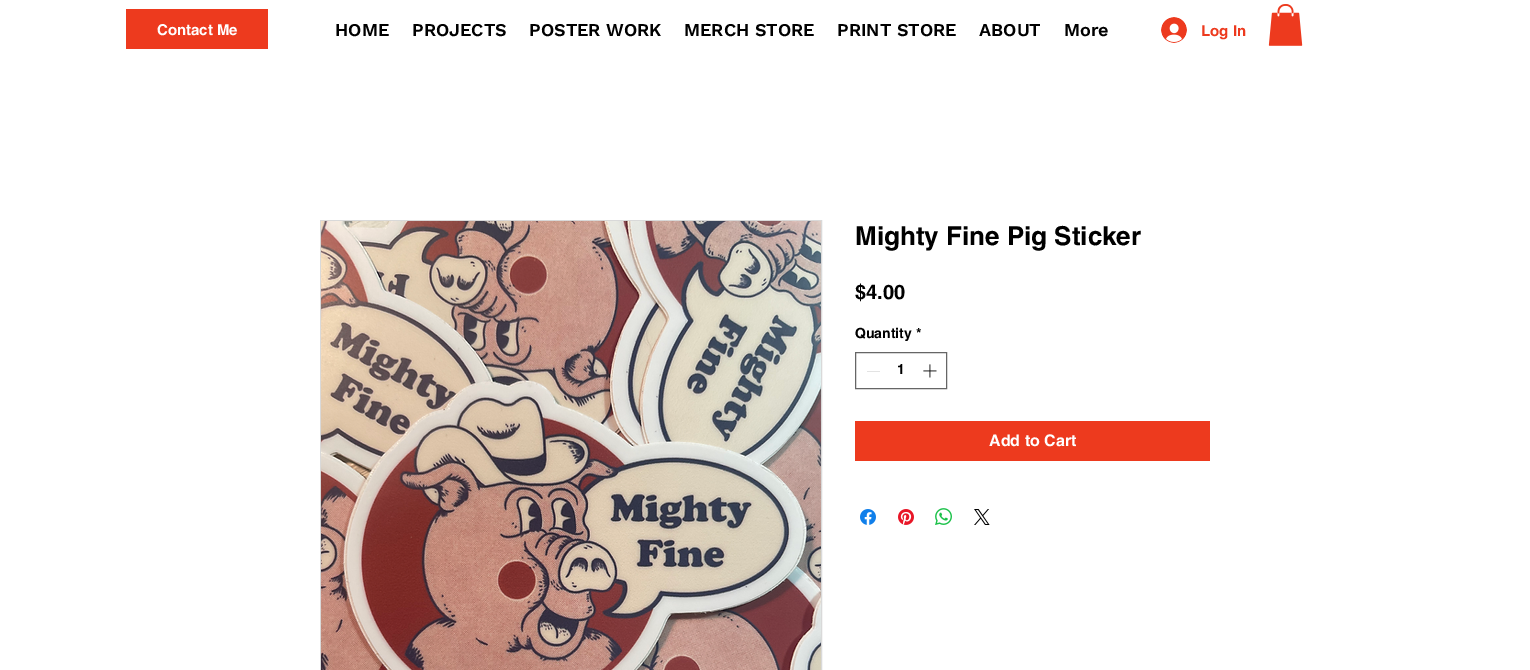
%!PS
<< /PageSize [1530 670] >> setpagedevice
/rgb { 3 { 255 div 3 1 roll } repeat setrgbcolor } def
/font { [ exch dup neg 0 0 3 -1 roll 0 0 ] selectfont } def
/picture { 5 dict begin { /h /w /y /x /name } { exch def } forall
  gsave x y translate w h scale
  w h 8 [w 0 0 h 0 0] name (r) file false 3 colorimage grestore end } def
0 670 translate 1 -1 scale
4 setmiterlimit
255 255 255 rgb
0 0 1530 670 rectfill
237 58 30 rgb
126 9 142 40 rectfill
(img/1.rgb) 1161 17 26 26 picture
(img/2.rgb) 1268 4 35 42 picture
217 217 217 rgb
320.5 220.5 501 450 rectstroke
(img/3.rgb) 321 221 500 449 picture
102 102 102 rgb
855.5 352.5 91 36 rectstroke
227 227 227 rgb
867 371 13 1 rectfill
(img/4.rgb) 923 364 14 14 picture
237 58 30 rgb
855 421 355 40 rectfill
(img/5.rgb) 860 509 16 16 picture
(img/6.rgb) 898 509 16 16 picture
(img/7.rgb) 935 508 17 17 picture
(img/8.rgb) 974 509 16 16 picture
/helvetica-Bold 15 font
255 255 255 rgb
157 35 moveto (Contact Me) show
/WorkSans-SemiBold 18 font
0 0 0 rgb
[
  [(HOME) 335 36]
  [(PROJECTS) 412 36]
  [(POSTER WORK) 529 36]
  [(MERCH STORE) 684 36]
  [(PRINT STORE) 837 36]
  [(ABOUT) 979 36]
  [(More) 1064 36]
] { aload pop moveto show } forall
/helvetica-Bold 15 font
237 58 30 rgb
1201 36 moveto (Log In) show
/helvetica-Bold 26 font
0 0 0 rgb
855 245 moveto (Mighty Fine Pig Sticker) show
/helvetica-Bold 20 font
855 299 moveto ($4.00) show
/helvetica-Bold 14 font
855 338 moveto (Quantity *) show
897 374 moveto (1) show
/helvetica-Bold 16 font
255 255 255 rgb
989 446 moveto (Add to Cart) show
showpage
